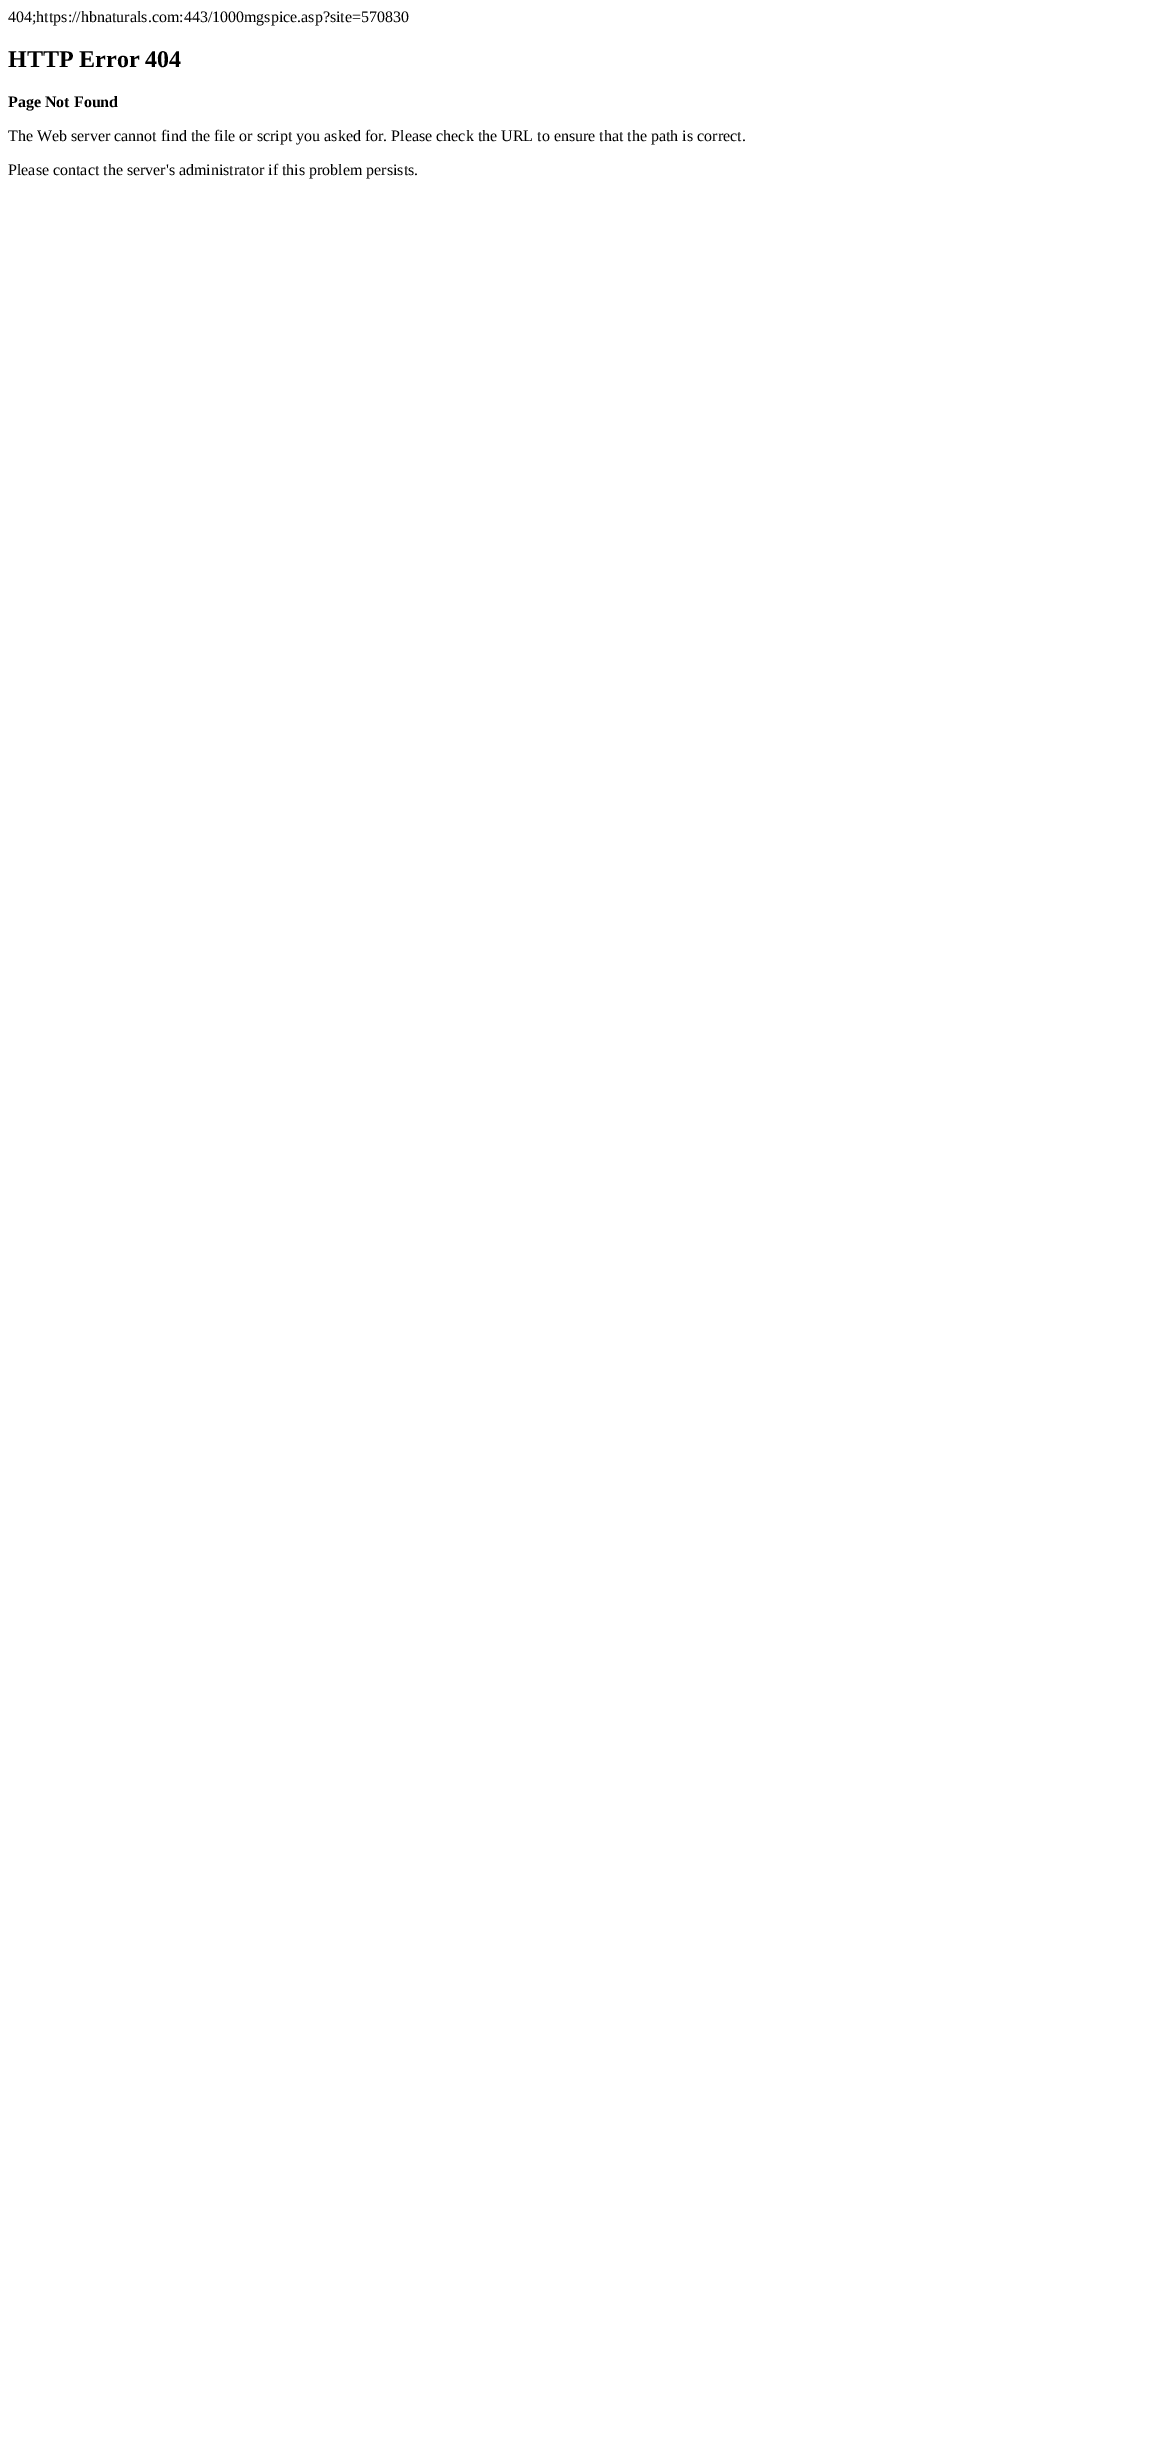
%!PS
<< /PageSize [1149 2457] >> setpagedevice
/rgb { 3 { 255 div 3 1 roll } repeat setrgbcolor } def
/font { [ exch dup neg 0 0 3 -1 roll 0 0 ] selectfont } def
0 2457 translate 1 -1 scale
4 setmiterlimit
255 255 255 rgb
0 0 1149 2457 rectfill
/LiberationSerif-Regular 16 font
0 0 0 rgb
8 22 moveto (404;https://hbnaturals.com:443/1000mgspice.asp?site=570830) show
/LiberationSerif-Bold 24 font
8 67 moveto (HTTP Error 404) show
/LiberationSerif-Bold 16 font
8 107 moveto (Page Not Found) show
/LiberationSerif-Regular 16 font
8 141 moveto (The Web server cannot find the file or script you asked for. Please check the URL to ensure that the path is correct.) show
8 175 moveto (Please contact the server's administrator if this problem persists.) show
showpage
